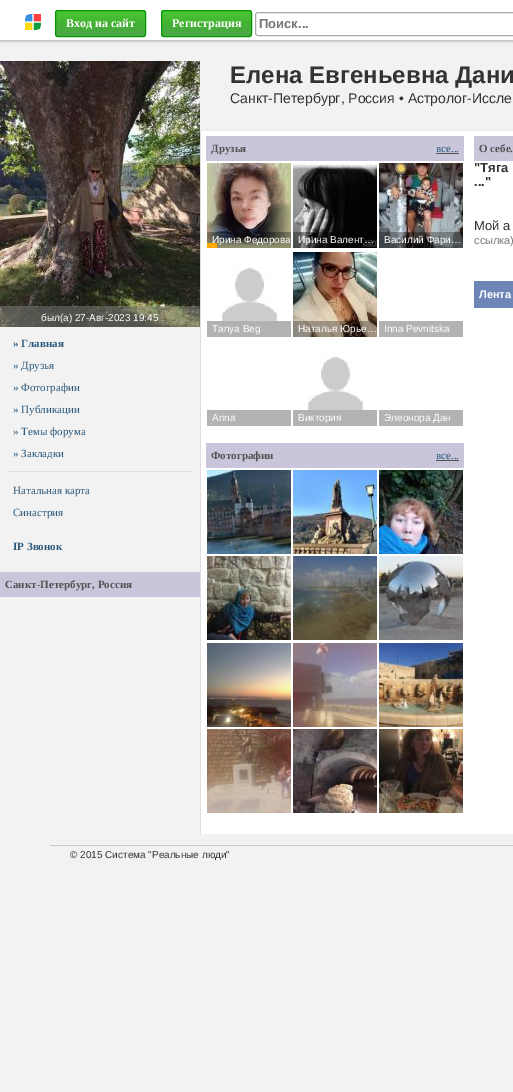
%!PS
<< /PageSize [513 1092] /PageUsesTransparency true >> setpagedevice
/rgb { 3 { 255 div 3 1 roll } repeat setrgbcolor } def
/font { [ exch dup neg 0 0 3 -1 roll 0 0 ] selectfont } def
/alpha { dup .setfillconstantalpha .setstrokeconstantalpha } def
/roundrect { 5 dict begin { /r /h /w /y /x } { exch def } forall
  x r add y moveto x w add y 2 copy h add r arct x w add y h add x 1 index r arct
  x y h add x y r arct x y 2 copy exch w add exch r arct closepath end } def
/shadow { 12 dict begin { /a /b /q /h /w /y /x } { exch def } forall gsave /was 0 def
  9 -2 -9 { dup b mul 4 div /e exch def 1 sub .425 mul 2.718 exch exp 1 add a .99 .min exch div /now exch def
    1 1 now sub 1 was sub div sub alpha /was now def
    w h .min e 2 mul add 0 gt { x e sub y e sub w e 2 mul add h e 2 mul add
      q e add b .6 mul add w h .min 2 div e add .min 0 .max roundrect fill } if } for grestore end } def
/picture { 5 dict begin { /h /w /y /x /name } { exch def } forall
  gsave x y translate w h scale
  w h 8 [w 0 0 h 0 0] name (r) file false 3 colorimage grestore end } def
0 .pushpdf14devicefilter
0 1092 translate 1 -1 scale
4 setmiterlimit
242 242 242 rgb
0 0 513 1092 rectfill
170 170 170 rgb
0 1 513 40 0 1.5 1 shadow
255 255 255 rgb
0 0 513 40 rectfill
(img/1.rgb) 25 14 16 16 picture
(img/2.rgb) 55 10 91 27 picture
0 153 0 rgb
55.5 10.5 90 26 2.5 roundrect stroke
(img/2.rgb) 161 10 91 27 picture
161.5 10.5 90 26 2.5 roundrect stroke
170 170 170 rgb
255.5 12.5 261 23 2.5 roundrect stroke
238 238 238 rgb
200 130 313 1 rectfill
(img/3.rgb) 0 61 200 266 picture
0.5 alpha
[
  [0 306 200 21 128 128 128]
] { aload pop rgb rectfill } forall
1 alpha
[
  [7 471 186 1 218 225 232]
  [0 572 200 25 201 197 219]
  [201 131 312 703 255 255 255]
  [200 131 1 704 221 221 221]
  [206 136 258 25 201 197 219]
  [436 153 23 1 83 81 81]
] { aload pop rgb rectfill } forall
(img/4.rgb) 207 163 84 85 picture
0.3 alpha
0 0 0 rgb
207 232 84 16 rectfill
1 alpha
(img/5.rgb) 293 163 84 85 picture
0.3 alpha
293 232 84 16 rectfill
1 alpha
(img/6.rgb) 379 163 84 85 picture
0.3 alpha
379 232 84 16 rectfill
1 alpha
(img/7.rgb) 221 268 57 57 picture
0.3 alpha
207 321 84 16 rectfill
1 alpha
(img/8.rgb) 293 252 84 85 picture
0.3 alpha
[
  [293 321 84 16 0 0 0]
] { aload pop rgb rectfill } forall
1 alpha
[
  [379 321 84 16 179 179 179]
  [207 410 84 16 179 179 179]
] { aload pop rgb rectfill } forall
(img/9.rgb) 307 357 57 57 picture
0.3 alpha
[
  [293 410 84 16 0 0 0]
] { aload pop rgb rectfill } forall
1 alpha
[
  [379 410 84 16 179 179 179]
  [206 443 258 25 201 197 219]
  [436 460 23 1 83 81 81]
] { aload pop rgb rectfill } forall
(img/10.rgb) 207 470 84 84 picture
(img/11.rgb) 293 470 84 84 picture
(img/12.rgb) 379 470 84 84 picture
(img/13.rgb) 207 556 84 84 picture
(img/14.rgb) 293 556 84 84 picture
(img/15.rgb) 379 556 84 84 picture
(img/16.rgb) 207 643 84 84 picture
(img/17.rgb) 293 643 84 84 picture
(img/18.rgb) 379 643 84 84 picture
(img/19.rgb) 207 729 84 84 picture
(img/20.rgb) 293 729 84 84 picture
(img/21.rgb) 379 729 84 84 picture
[
  [474 136 39 25 201 197 219]
  [474 281 39 27 109 134 183]
  [50 845 463 1 204 204 204]
] { aload pop rgb rectfill } forall
/LiberationSerif-Bold 12 font
255 255 255 rgb
66 27 moveto (Вход на сайт) show
172 27 moveto (Регистрация) show
/LiberationSans-Bold 13 font
119 119 119 rgb
259 28 moveto (Поиск...) show
/LiberationSans-Bold 24 font
51 51 51 rgb
230 83 moveto (Елена Евгеньевна Дани) show
/LiberationSans-Regular 14 font
230 103 moveto (Санкт-Петербург, Россия • Астролог-Иссле) show
/LiberationSans-Regular 10 font
255 255 255 rgb
41 321 moveto (был\(а\) 27-Авг-2023 19:45) show
/LiberationSerif-Bold 11 font
43 88 122 rgb
13 347 moveto (» Главная) show
/LiberationSerif-Regular 11 font
[
  [(» Друзья) 13 369]
  [(» Фотографии) 13 391]
  [(» Публикации) 13 413]
  [(» Темы форума) 13 435]
  [(» Закладки) 13 457]
  [(Натальная карта) 13 494]
  [(Синастрия) 13 516]
] { aload pop moveto show } forall
/LiberationSerif-Bold 11 font
13 550 moveto (IP Звонок) show
83 81 81 rgb
5 588 moveto (Санкт-Петербург, Россия) show
211 152 moveto (Друзья) show
/LiberationSerif-Regular 11 font
43 88 122 rgb
436 152 moveto (все...) show
/LiberationSans-Regular 10 font
255 255 255 rgb
212 243 moveto (Ирина Федорова) show
255 170 0 rgb
207 243 10 5 rectfill
255 255 255 rgb
[
  [(Ирина Валент…) 298 243]
  [(Василий Фари…) 384 243]
  [(Tanya Beg) 212 332]
  [(Наталья Юрье…) 298 332]
  [(Inna Pevnitska) 384 332]
  [(Arina) 212 421]
  [(Виктория) 298 421]
  [(Элеонора Дан) 384 421]
] { aload pop moveto show } forall
/LiberationSerif-Bold 11 font
83 81 81 rgb
211 459 moveto (Фотографии) show
/LiberationSerif-Regular 11 font
43 88 122 rgb
436 459 moveto (все...) show
/LiberationSerif-Bold 11 font
83 81 81 rgb
479 152 moveto (О себе.) show
/LiberationSans-Bold 13 font
51 51 51 rgb
474 172 moveto ("Тяга) show
474 186 moveto (...") show
/LiberationSans-Regular 13 font
474 230 moveto (Мой а) show
/LiberationSans-Regular 11 font
119 119 119 rgb
474 244 moveto (ссылка\)) show
/LiberationSans-Bold 11 font
255 255 255 rgb
479 298 moveto (Лента) show
/LiberationSans-Regular 10 font
51 51 51 rgb
70 858 moveto (© 2015 Система "Реальные люди") show
.poppdf14devicefilter showpage
